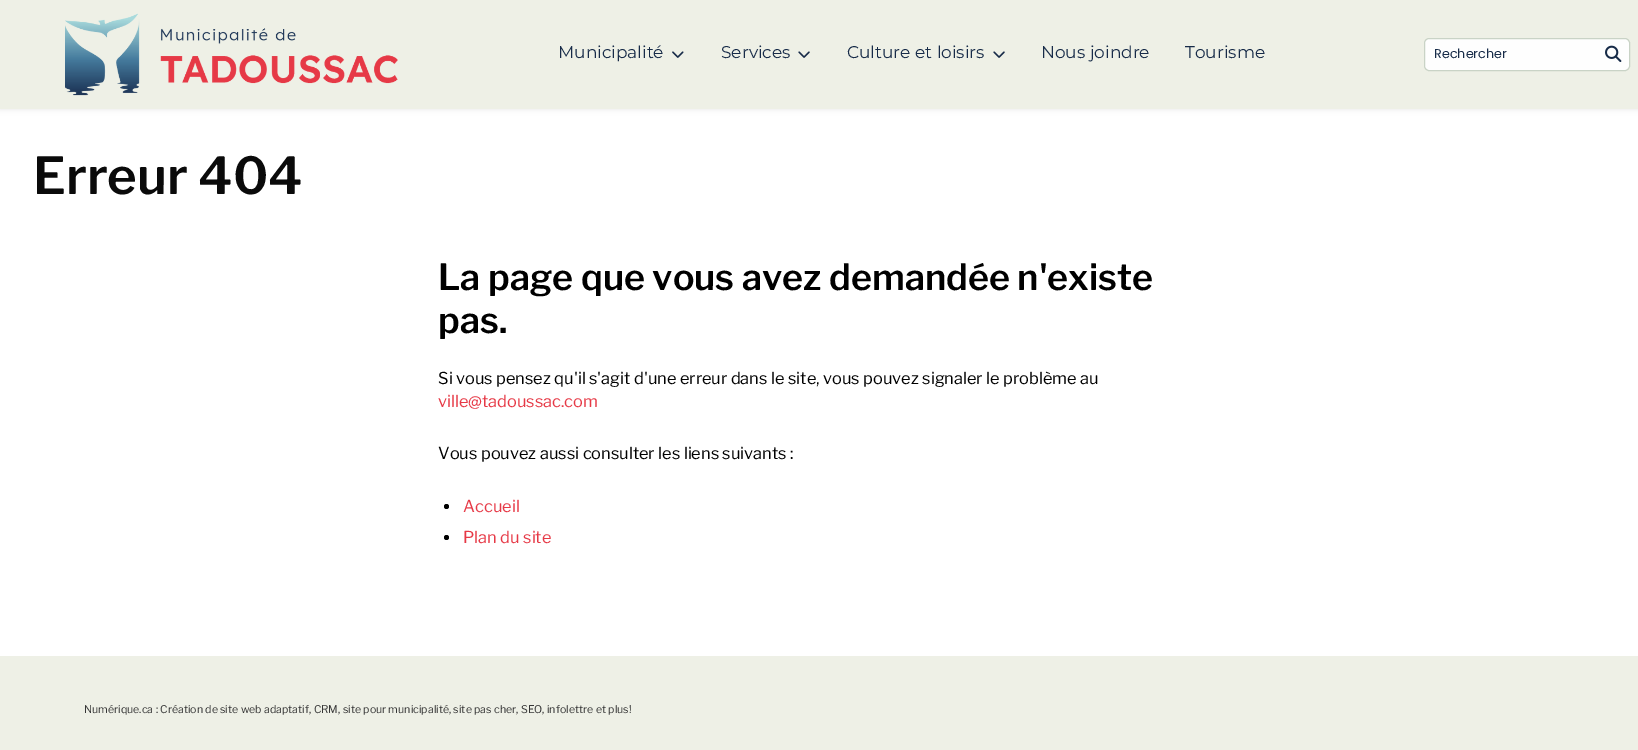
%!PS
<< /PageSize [1638 750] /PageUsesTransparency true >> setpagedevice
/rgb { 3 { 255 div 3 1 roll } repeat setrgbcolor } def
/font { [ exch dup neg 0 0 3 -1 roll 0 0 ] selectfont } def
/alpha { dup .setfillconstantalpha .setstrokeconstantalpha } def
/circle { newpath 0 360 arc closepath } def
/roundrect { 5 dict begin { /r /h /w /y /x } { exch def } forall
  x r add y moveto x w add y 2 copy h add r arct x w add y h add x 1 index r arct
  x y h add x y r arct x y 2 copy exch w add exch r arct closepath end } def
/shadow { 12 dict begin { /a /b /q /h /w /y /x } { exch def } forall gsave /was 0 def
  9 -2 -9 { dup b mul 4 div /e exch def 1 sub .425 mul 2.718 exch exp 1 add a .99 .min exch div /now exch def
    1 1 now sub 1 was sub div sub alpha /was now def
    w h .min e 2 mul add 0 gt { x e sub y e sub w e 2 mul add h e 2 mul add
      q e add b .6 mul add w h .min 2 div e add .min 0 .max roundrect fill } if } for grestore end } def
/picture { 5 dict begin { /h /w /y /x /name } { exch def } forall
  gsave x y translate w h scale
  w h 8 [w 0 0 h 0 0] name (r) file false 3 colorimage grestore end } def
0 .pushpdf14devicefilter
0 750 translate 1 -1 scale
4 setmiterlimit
255 255 255 rgb
0 0 1638 750 rectfill
0 0 0 rgb
0 0 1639 109 0 3 0.1 shadow
238 240 230 rgb
0 0 1638 109 rectfill
(img/1.rgb) 65 13 333 83 picture
(img/2.rgb) 672 51 12 7 picture
(img/3.rgb) 798 51 12 7 picture
(img/3.rgb) 993 51 12 7 picture
254 254 254 rgb
1424.5 38.5 205 32 4.5 roundrect gsave fill grestore
201 211 198 rgb
stroke
(img/4.rgb) 1605 45 17 17 picture
0 0 0 rgb
446.5 506.5 2.5 circle fill
446.5 537.5 2.5 circle fill
238 240 230 rgb
0 656 1638 94 rectfill
/Montserrat-Regular 17 font
23 43 72 rgb
[
  [(Municipalité) 558 58]
  [(Services) 721 58]
  [(Culture et loisirs) 847 58]
  [(Nous joindre) 1041 58]
  [(Tourisme) 1185 58]
] { aload pop moveto show } forall
/Poppins-Regular 12.75 font
1434 58 moveto (Rechercher) show
/LibreFranklin-SemiBold 50.75 font
10 10 10 rgb
33 194 moveto (Erreur 404) show
/LibreFranklin-SemiBold 36 font
0 0 0 rgb
438 290 moveto (La page que vous avez demandée n'existe) show
438 333 moveto (pas.) show
/LibreFranklin-Regular 16.4 font
438 384 moveto (Si vous pensez qu'il s'agit d'une erreur dans le site, vous pouvez signaler le problème au) show
230 57 70 rgb
438 407 moveto (ville@tadoussac.com) show
0 0 0 rgb
438 459 moveto (Vous pouvez aussi consulter les liens suivants :) show
230 57 70 rgb
463 512 moveto (Accueil) show
463 543 moveto (Plan du site) show
/LibreFranklin-Regular 10.65 font
53 53 53 rgb
84 713 moveto (Numérique.ca : Création de site web adaptatif, CRM, site pour municipalité, site pas cher, SEO, infolettre et plus!) show
.poppdf14devicefilter showpage
